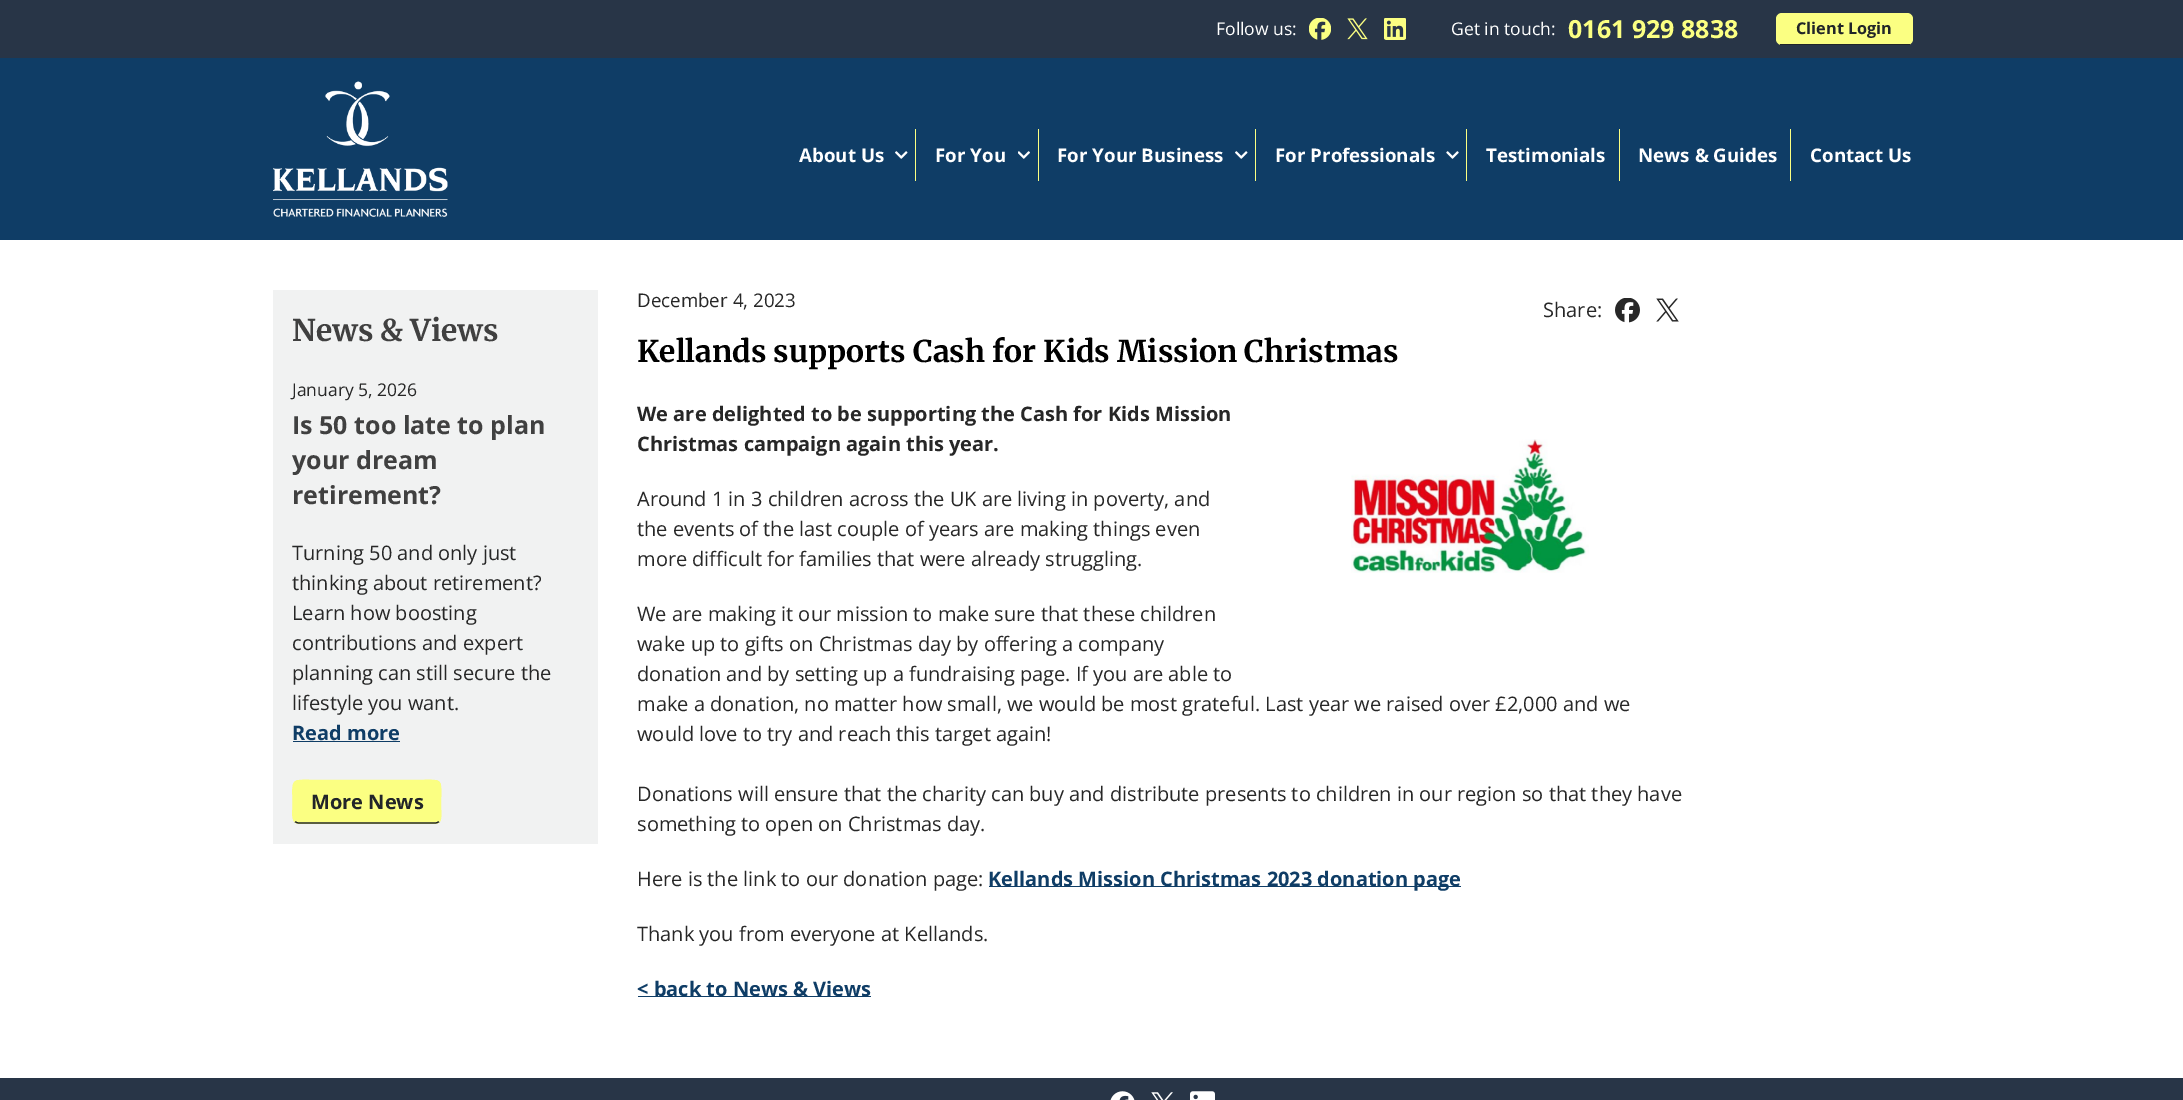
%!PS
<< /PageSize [2183 1100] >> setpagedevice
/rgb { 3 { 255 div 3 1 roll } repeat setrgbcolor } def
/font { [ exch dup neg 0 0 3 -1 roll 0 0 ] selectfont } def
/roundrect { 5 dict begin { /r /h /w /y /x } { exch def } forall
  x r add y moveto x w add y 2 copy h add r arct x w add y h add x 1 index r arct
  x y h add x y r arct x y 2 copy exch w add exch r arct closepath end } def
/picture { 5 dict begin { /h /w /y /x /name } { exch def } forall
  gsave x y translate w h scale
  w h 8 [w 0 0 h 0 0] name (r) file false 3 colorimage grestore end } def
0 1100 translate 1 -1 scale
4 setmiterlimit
255 255 255 rgb
0 0 2183 1100 rectfill
40 53 71 rgb
0 0 2183 58 rectfill
(img/1.rgb) 1309 18 22 22 picture
(img/2.rgb) 1347 18 21 22 picture
(img/3.rgb) 1384 18 22 22 picture
251 255 130 rgb
1776 13 137 32 6 roundrect fill
33 37 41 rgb
1780 44 130 1 rectfill
15 61 102 rgb
0 58 2183 182 rectfill
(img/4.rgb) 273 81 175 136 picture
251 255 130 rgb
915 129 1 52 rectfill
(img/5.rgb) 895 151 13 8 picture
1038 129 1 52 rectfill
(img/6.rgb) 1018 151 12 8 picture
1255 129 1 52 rectfill
(img/5.rgb) 1235 151 13 8 picture
1466 129 1 52 rectfill
(img/7.rgb) 1446 151 13 8 picture
[
  [1619 129 1 52 251 255 130]
  [1790 129 1 52 251 255 130]
  [273 290 325 554 241 242 242]
  [293 741 107 1 15 61 102]
] { aload pop rgb rectfill } forall
251 255 130 rgb
293 780 148 44 6 roundrect fill
33 37 41 rgb
1.2 setlinewidth
439 821.5 moveto 438 822.5 436.5 823 435 823 curveto 299 823 lineto 297.5 823 296 822.5 295 821.5 curveto stroke
251 255 130 rgb
295 821.5 moveto 291.5 818.5 293 811 293 807 curveto 293 776 288.5 780.5 321.5 780.5 curveto 412.5 780.5 lineto 445.5 780.5 440.5 776 440.5 807 curveto 440.5 811 442 818.5 439 821.5 curveto stroke
(img/8.rgb) 1615 298 25 25 picture
(img/9.rgb) 1656 298 23 24 picture
(img/10.rgb) 1351 439 238 134 picture
[
  [989 886 472 1 15 61 102]
  [638 996 233 1 15 61 102]
  [0 1078 2183 22 40 53 71]
] { aload pop rgb rectfill } forall
(img/11.rgb) 1110 1091 25 9 picture
(img/12.rgb) 1151 1092 22 8 picture
(img/13.rgb) 1190 1091 25 9 picture
/OpenSans-Regular 17.5 font
255 255 255 rgb
1216 35 moveto (Follow us:) show
1451 35 moveto (Get in touch:) show
/OpenSans-Bold 25 font
251 255 130 rgb
1568 38 moveto (0161 929 8838) show
/OpenSans-Bold 16.25 font
33 37 41 rgb
1796 34 moveto (Client Login) show
/OpenSans-Bold 18.75 font
255 255 255 rgb
[
  [(About Us) 799 162]
  [(For You) 935 162]
  [(For Your Business) 1057 162]
  [(For Professionals) 1275 162]
  [(Testimonials) 1486 162]
  [(News & Guides) 1638 162]
  [(Contact Us) 1810 162]
] { aload pop moveto show } forall
/Merriweather-Light 30 font
64 64 64 rgb
292 341 moveto (News & Views) show
/OpenSans-Regular 17.5 font
39 39 39 rgb
292 396 moveto (January 5, 2026) show
/OpenSans-Bold 25 font
64 64 64 rgb
[
  [(Is 50 too late to plan) 292 434]
  [(your dream) 292 469]
  [(retirement?) 292 504]
] { aload pop moveto show } forall
/OpenSans-Regular 20 font
39 39 39 rgb
[
  [(Turning 50 and only just) 292 560]
  [(thinking about retirement?) 292 590]
  [(Learn how boosting) 292 620]
  [(contributions and expert) 292 650]
  [(planning can still secure the) 292 680]
  [(lifestyle you want.) 292 710]
] { aload pop moveto show } forall
/OpenSans-Bold 20 font
15 61 102 rgb
292 740 moveto (Read more) show
33 37 41 rgb
311 809 moveto (More News) show
/OpenSans-Regular 18.75 font
39 39 39 rgb
637 307 moveto (December 4, 2023) show
/Merriweather-Light 30 font
0 0 0 rgb
637 362 moveto (Kellands supports Cash for Kids Mission Christmas) show
/OpenSans-Regular 20 font
39 39 39 rgb
1543 317 moveto (Share:) show
/OpenSans-Bold 20 font
637 421 moveto (We are delighted to be supporting the Cash for Kids Mission) show
637 451 moveto (Christmas campaign again this year.) show
/OpenSans-Regular 20 font
[
  [(Around 1 in 3 children across the UK are living in poverty, and) 637 506]
  [(the events of the last couple of years are making things even) 637 536]
  [(more difficult for families that were already struggling.) 637 566]
  [(We are making it our mission to make sure that these children) 637 621]
  [(wake up to gifts on Christmas day by offering a company) 637 651]
  [(donation and by setting up a fundraising page. If you are able to) 637 681]
  [(make a donation, no matter how small, we would be most grateful. Last year we raised over £2,000 and we) 637 711]
  [(would love to try and reach this target again!) 637 741]
  [(Donations will ensure that the charity can buy and distribute presents to children in our region so that they have) 637 801]
  [(something to open on Christmas day.) 637 831]
  [(Here is the link to our donation page:) 637 886]
] { aload pop moveto show } forall
/OpenSans-Bold 20 font
15 61 102 rgb
988 886 moveto (Kellands Mission Christmas 2023 donation page) show
/OpenSans-Regular 20 font
39 39 39 rgb
637 941 moveto (Thank you from everyone at Kellands.) show
/OpenSans-Bold 20 font
15 61 102 rgb
637 996 moveto (< back to News & Views) show
showpage
